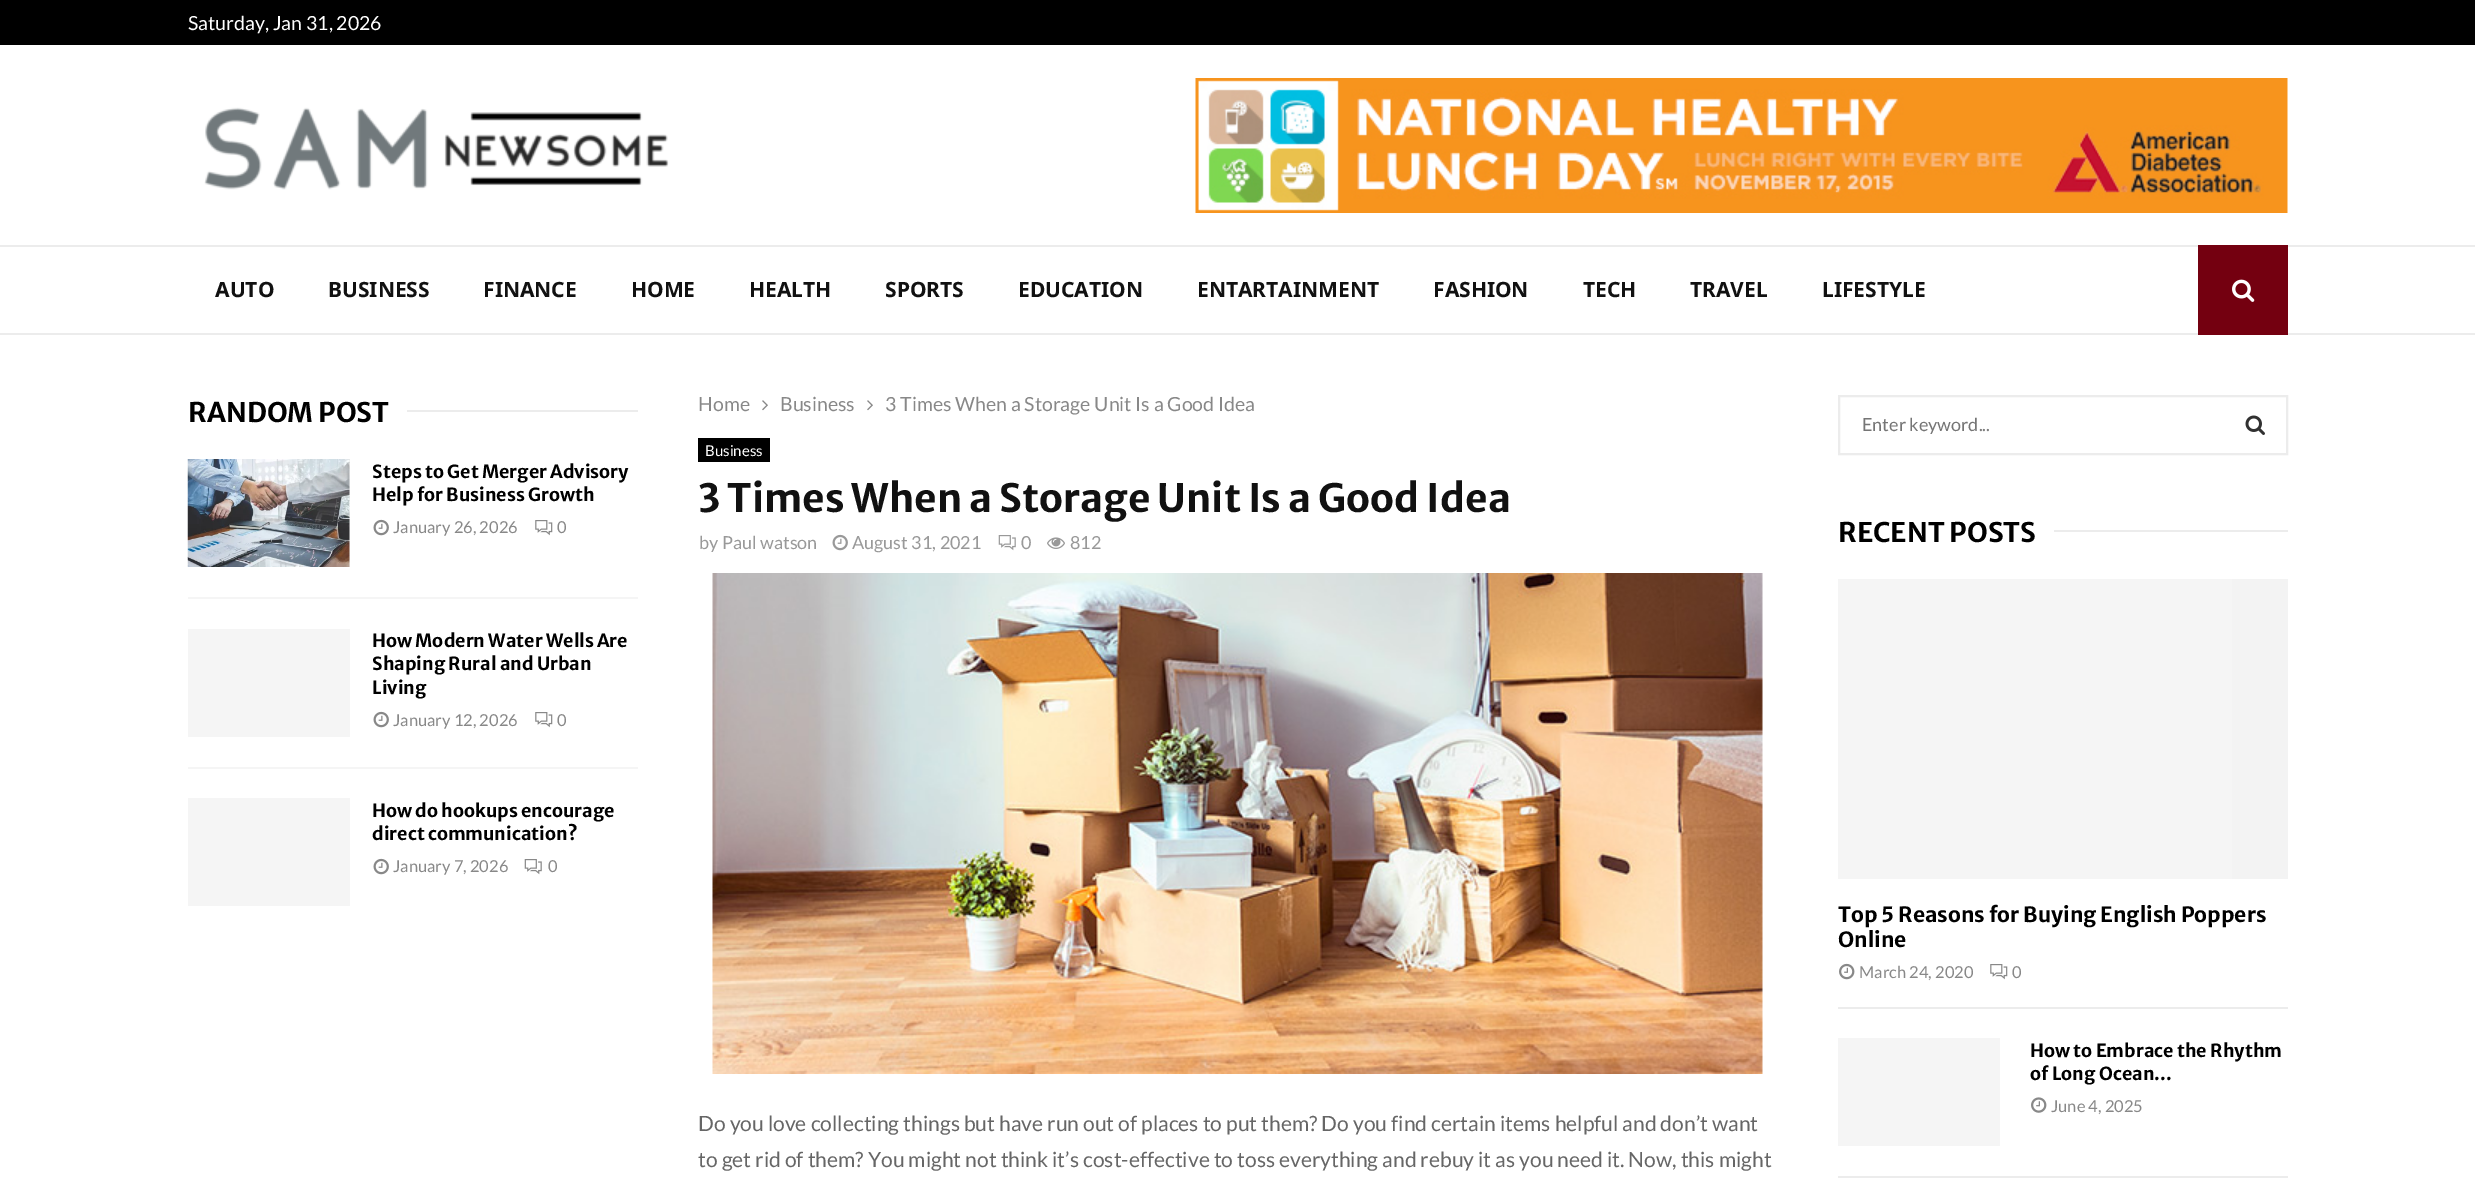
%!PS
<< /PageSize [2475 1183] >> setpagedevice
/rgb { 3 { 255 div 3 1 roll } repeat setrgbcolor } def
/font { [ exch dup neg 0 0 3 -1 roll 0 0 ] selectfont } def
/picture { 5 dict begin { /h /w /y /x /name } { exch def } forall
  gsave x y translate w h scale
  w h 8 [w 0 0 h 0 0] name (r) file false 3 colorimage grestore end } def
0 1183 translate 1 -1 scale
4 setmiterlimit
255 255 255 rgb
0 0 2475 1183 rectfill
0 0 0 rgb
0 0 2475 45 rectfill
(img/1.rgb) 204 107 465 83 picture
(img/2.rgb) 1195 78 1093 135 picture
[
  [0 333 2475 2 236 236 236]
  [0 245 2475 2 236 236 236]
  [2198 245 90 90 116 0 16]
] { aload pop rgb rectfill } forall
(img/3.rgb) 2232 279 23 23 picture
[
  [407 410 231 2 236 236 236]
  [188 597 450 2 245 245 245]
  [349 459 1 108 245 245 245]
] { aload pop rgb rectfill } forall
(img/4.rgb) 187 459 163 108 picture
(img/5.rgb) 373 519 16 17 picture
(img/6.rgb) 535 520 18 16 picture
188 767 450 2 rectfill
188 629 162 108 rectfill
(img/5.rgb) 373 711 16 17 picture
(img/6.rgb) 535 712 18 16 picture
188 798 162 108 rectfill
(img/5.rgb) 373 858 16 17 picture
(img/7.rgb) 524 859 18 16 picture
(img/8.rgb) 762 400 6 11 picture
(img/8.rgb) 867 400 6 11 picture
0 0 0 rgb
698 438 72 24 rectfill
(img/9.rgb) 832 534 16 17 picture
(img/10.rgb) 998 535 18 16 picture
(img/11.rgb) 1047 537 18 12 picture
(img/12.rgb) 712 573 1051 501 picture
236 236 236 rgb
2 setlinewidth
1839 396 448 58 rectstroke
(img/13.rgb) 2245 415 20 20 picture
2054 530 234 2 rectfill
1838 1007 450 2 rectfill
gsave 1838 579 moveto 2288 579 lineto 2288 879 lineto 1838 879 lineto closepath clip newpath
<< /ShadingType 2 /ColorSpace /DeviceRGB /Coords [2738 729 1388 729] /Extend [true true] /Function << /FunctionType 3 /Domain [0 1] /Functions [<< /FunctionType 2 /Domain [0 1] /C0 [0.961 0.961 0.961] /C1 [0.937 0.937 0.937] /N 1 >> << /FunctionType 2 /Domain [0 1] /C0 [0.937 0.937 0.937] /C1 [0.961 0.961 0.961] /N 1 >> << /FunctionType 2 /Domain [0 1] /C0 [0.961 0.961 0.961] /C1 [0.961 0.961 0.961] /N 1 >>] /Bounds [0.15 0.4] /Encode [0 1 0 1 0 1] >> >> shfill grestore
(img/14.rgb) 1839 963 16 17 picture
(img/6.rgb) 1990 964 18 16 picture
1838 1176 450 2 rectfill
245 245 245 rgb
1838 1038 162 108 rectfill
(img/15.rgb) 2031 1097 16 16 picture
/Lato-Regular 19.5 font
255 255 255 rgb
188 30 moveto (Saturday, Jan 31, 2026) show
/NotoSans-Bold 21 font
17 17 17 rgb
[
  [(AUTO) 215 297]
  [(BUSINESS) 328 297]
  [(FINANCE) 483 297]
  [(HOME) 631 297]
  [(HEALTH) 749 297]
  [(SPORTS) 885 297]
  [(EDUCATION) 1018 297]
  [(ENTARTAINMENT) 1197 297]
  [(FASHION) 1433 297]
  [(TECH) 1583 297]
  [(TRAVEL) 1690 297]
  [(LIFESTYLE) 1822 297]
] { aload pop moveto show } forall
/MerriweatherSans-Bold 27 font
0 0 0 rgb
188 422 moveto (RANDOM POST) show
/MerriweatherSans-Bold 18 font
372 478 moveto (Steps to Get Merger Advisory) show
372 501 moveto (Help for Business Growth) show
/Lato-Regular 16.5 font
136 136 136 rgb
393 533 moveto (January 26, 2026) show
557 533 moveto (0) show
/MerriweatherSans-Bold 18 font
0 0 0 rgb
[
  [(How Modern Water Wells Are) 372 647]
  [(Shaping Rural and Urban) 372 670]
  [(Living) 372 694]
] { aload pop moveto show } forall
/Lato-Regular 16.5 font
136 136 136 rgb
393 726 moveto (January 12, 2026) show
557 726 moveto (0) show
/MerriweatherSans-Bold 18 font
0 0 0 rgb
372 817 moveto (How do hookups encourage) show
372 840 moveto (direct communication?) show
/Lato-Regular 16.5 font
136 136 136 rgb
393 872 moveto (January 7, 2026) show
548 872 moveto (0) show
/Lato-Regular 19.5 font
[
  [(Home) 698 411]
  [(Business) 780 411]
  [(3 Times When a Storage Unit Is a Good Idea) 885 411]
] { aload pop moveto show } forall
/Lato-Regular 15 font
255 255 255 rgb
705 456 moveto (Business) show
/MerriweatherSans-Bold 39 font
17 17 17 rgb
698 512 moveto (3 Times When a Storage Unit Is a Good Idea) show
/Lato-Regular 18 font
153 153 153 rgb
[
  [(by Paul watson) 699 549]
  [(August 31, 2021) 852 549]
  [(0) 1021 549]
  [(812) 1070 549]
] { aload pop moveto show } forall
/Lato-Regular 21 font
102 102 102 rgb
698 1131 moveto (Do you love collecting things but have run out of places to put them? Do you find certain items helpful and don’t want) show
698 1167 moveto (to get rid of them? You might not think it’s cost-effective to toss everything and rebuy it as you need it. Now, this might) show
/Lato-Regular 18 font
117 117 117 rgb
1862 431 moveto (Enter keyword...) show
/MerriweatherSans-Bold 27 font
0 0 0 rgb
1838 542 moveto (RECENT POSTS) show
/MerriweatherSans-Bold 21 font
1838 922 moveto (Top 5 Reasons for Buying English Poppers) show
1838 947 moveto (Online) show
/Lato-Regular 16.5 font
136 136 136 rgb
1859 978 moveto (March 24, 2020) show
2012 978 moveto (0) show
/MerriweatherSans-Bold 18 font
0 0 0 rgb
2030 1057 moveto (How to Embrace the Rhythm) show
2030 1080 moveto (of Long Ocean...) show
/Lato-Regular 16.5 font
136 136 136 rgb
2051 1112 moveto (June 4, 2025) show
showpage
